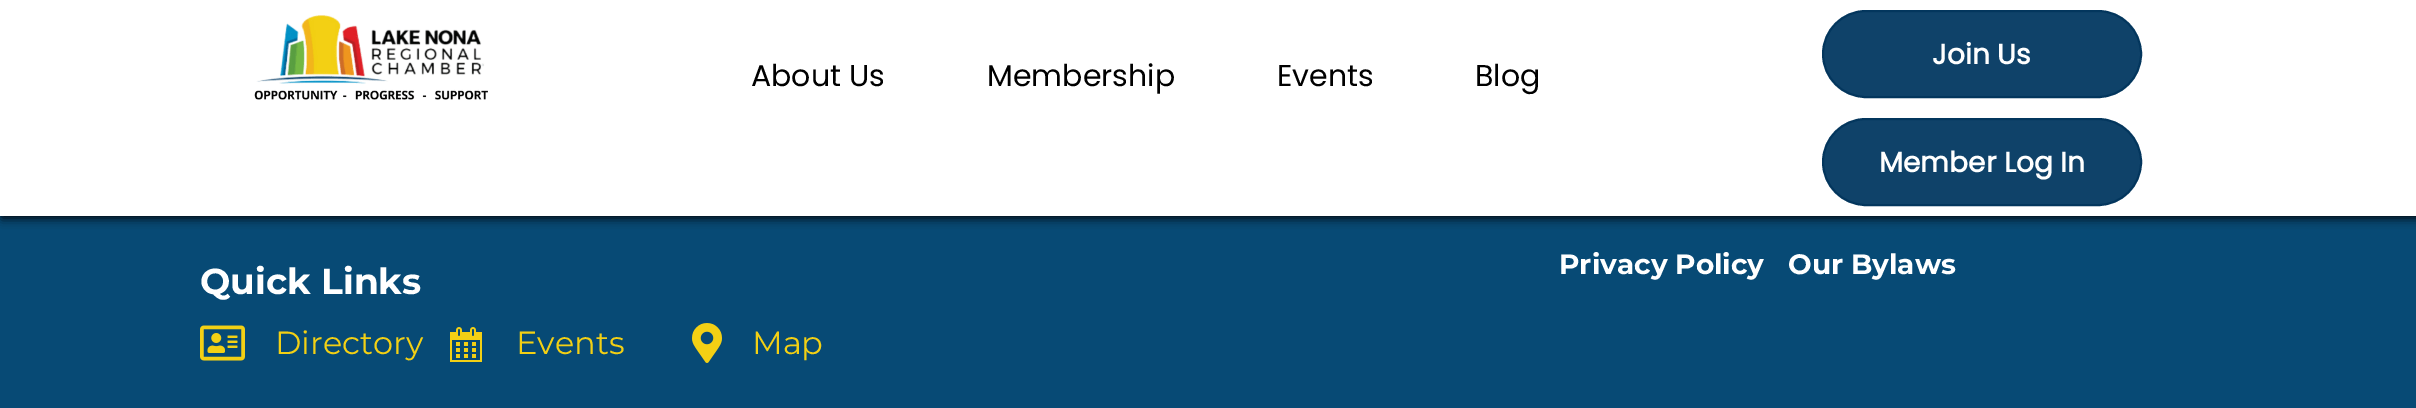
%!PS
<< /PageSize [2416 408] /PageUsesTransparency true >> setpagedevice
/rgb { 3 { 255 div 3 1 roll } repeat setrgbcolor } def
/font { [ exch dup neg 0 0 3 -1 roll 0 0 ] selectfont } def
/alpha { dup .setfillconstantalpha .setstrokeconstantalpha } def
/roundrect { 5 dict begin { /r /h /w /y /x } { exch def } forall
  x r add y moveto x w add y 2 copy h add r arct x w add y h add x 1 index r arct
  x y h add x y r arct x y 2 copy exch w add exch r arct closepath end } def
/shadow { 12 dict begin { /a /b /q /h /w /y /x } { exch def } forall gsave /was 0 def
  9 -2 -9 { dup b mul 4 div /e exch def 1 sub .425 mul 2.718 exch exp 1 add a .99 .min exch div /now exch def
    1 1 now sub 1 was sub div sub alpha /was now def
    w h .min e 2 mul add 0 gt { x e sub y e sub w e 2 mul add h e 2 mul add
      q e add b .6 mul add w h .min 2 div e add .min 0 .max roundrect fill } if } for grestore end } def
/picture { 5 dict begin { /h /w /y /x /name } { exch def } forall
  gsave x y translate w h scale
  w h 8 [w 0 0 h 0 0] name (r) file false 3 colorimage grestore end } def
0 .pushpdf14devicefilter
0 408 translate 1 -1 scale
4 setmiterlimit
7 74 117 rgb
0 0 2416 408 rectfill
0 0 0 rgb
2 2 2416 216 0 5 1 shadow
255 255 255 rgb
0 0 2416 216 rectfill
(img/1.rgb) 254 15 234 85 picture
15 66 105 rgb
1823 11 318 86 43 roundrect gsave fill grestore
3 54 93 rgb
2 setlinewidth
stroke
15 66 105 rgb
1823 119 318 86 43 roundrect gsave fill grestore
3 54 93 rgb
stroke
(img/2.rgb) 200 325 45 36 picture
(img/3.rgb) 450 327 32 35 picture
(img/4.rgb) 692 323 30 40 picture
/Poppins-Regular 30 font
0 0 0 rgb
[
  [(About Us) 751 86]
  [(Membership) 987 86]
  [(Events) 1277 86]
  [(Blog) 1475 86]
] { aload pop moveto show } forall
/Poppins-Bold 28 font
255 255 255 rgb
1932 64 moveto (Join Us) show
1879 172 moveto (Member Log In) show
/Montserrat-Bold 36 font
200 294 moveto (Quick Links) show
/Montserrat-Regular 32 font
243 208 20 rgb
[
  [(Directory) 275 354]
  [(Events) 516 354]
  [(Map) 752 354]
] { aload pop moveto show } forall
/Montserrat-Bold 28 font
255 255 255 rgb
1559 274 moveto (Privacy Policy) show
1788 274 moveto (Our Bylaws) show
.poppdf14devicefilter showpage
